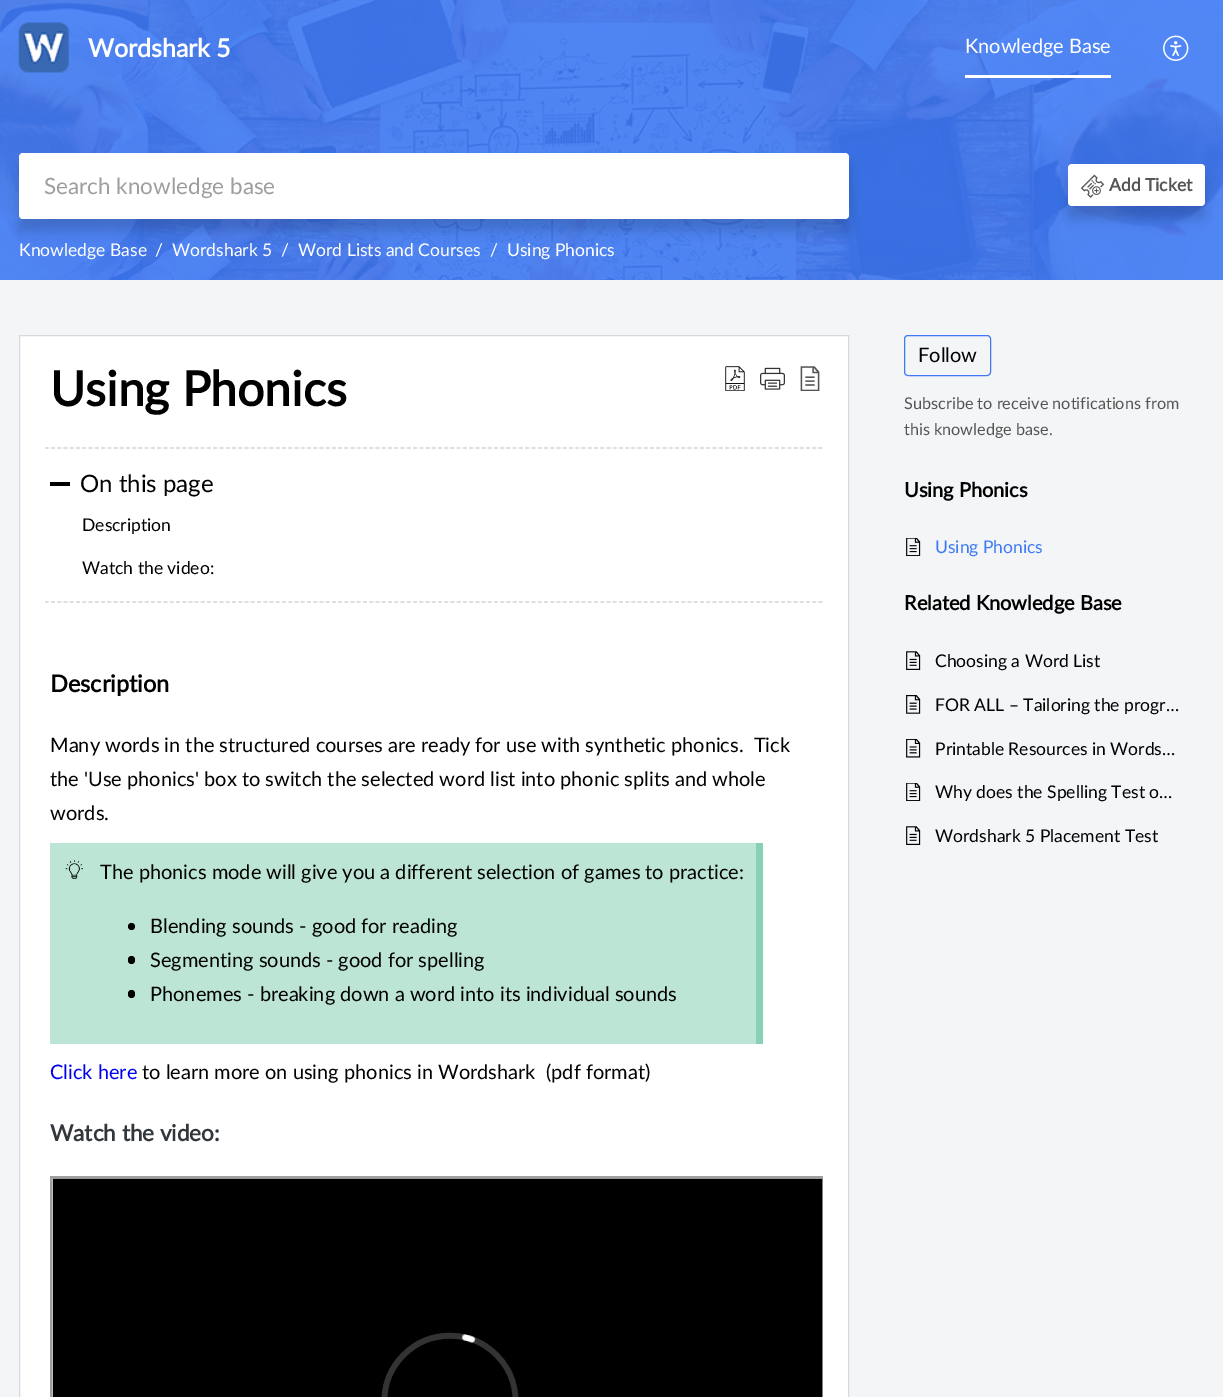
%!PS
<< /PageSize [1223 1397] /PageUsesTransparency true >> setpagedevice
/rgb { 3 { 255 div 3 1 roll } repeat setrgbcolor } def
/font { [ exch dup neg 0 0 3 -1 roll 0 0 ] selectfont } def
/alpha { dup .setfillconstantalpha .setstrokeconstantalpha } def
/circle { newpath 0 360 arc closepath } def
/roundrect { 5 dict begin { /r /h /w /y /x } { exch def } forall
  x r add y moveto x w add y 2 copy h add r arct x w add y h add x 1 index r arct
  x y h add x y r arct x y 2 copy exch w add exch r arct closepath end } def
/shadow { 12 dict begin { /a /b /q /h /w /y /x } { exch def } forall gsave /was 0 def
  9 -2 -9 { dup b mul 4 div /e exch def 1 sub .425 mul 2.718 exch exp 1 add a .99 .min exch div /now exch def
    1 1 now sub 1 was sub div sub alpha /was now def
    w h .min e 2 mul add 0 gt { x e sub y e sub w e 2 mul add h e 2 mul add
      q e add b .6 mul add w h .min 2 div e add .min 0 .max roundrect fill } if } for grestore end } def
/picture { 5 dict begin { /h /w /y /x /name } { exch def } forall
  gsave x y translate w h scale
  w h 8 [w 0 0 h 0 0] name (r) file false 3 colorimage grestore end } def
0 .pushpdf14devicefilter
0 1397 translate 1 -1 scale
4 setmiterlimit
243 245 247 rgb
0 0 1223 1397 rectfill
(img/1.rgb) 0 0 1223 280 picture
(img/2.rgb) 18 22 51 51 picture
255 255 255 rgb
965 75 146 3 rectfill
(img/3.rgb) 1163 35 26 26 picture
0 0 0 rgb
19 165 830 66 0 6 0.16 shadow
255 255 255 rgb
19 153 830 66 4 roundrect fill
0 0 0 rgb
1068 176 137 43 4 6 0.16 shadow
255 255 255 rgb
1068 164 137 42 4 roundrect fill
(img/4.rgb) 1080 174 25 24 picture
19.5 335.5 moveto 848.5 335.5 lineto 848.5 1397.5 lineto 19.5 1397.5 lineto closepath gsave fill grestore
212 218 223 rgb
stroke
(img/5.rgb) 725 366 20 25 picture
(img/6.rgb) 760 367 25 23 picture
(img/7.rgb) 800 366 20 25 picture
210 211 210 rgb
1.2 setlinewidth
[3.75 2.49] 0 setdash
45 448 moveto 822.5 448 lineto stroke
45 602 moveto 822.5 602 lineto stroke
[
  [50 482 20 4 0 0 0]
  [50 843 706 201 189 229 214]
  [756 843 7 201 136 209 181]
] { aload pop rgb rectfill } forall
(img/8.rgb) 65 860 18 19 picture
0 0 0 rgb
131.5 926.5 3.5 circle fill
128 956 7 8 3.5 roundrect fill
128 990 7 8 3.5 roundrect fill
gsave
45 635 778 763 rectclip
159 159 159 rgb
50 1176 moveto 850 1176 lineto 848 1179 lineto 52 1179 lineto closepath fill
grestore
159 159 159 rgb
50 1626 moveto 50 1176 lineto 52 1179 lineto 52 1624 lineto closepath fill
(img/9.rgb) 52 1178 771 219 picture
62 122 247 rgb
1 setlinewidth
[] 0 setdash
904.5 335.5 86 40 3.5 roundrect stroke
(img/10.rgb) 906 538 15 18 picture
(img/11.rgb) 906 651 15 19 picture
(img/12.rgb) 906 695 15 19 picture
(img/13.rgb) 906 739 15 19 picture
(img/10.rgb) 906 783 15 18 picture
(img/11.rgb) 906 826 15 19 picture
/Lato-Bold 25 font
255 255 255 rgb
88 57 moveto (Wordshark 5) show
/Lato-Regular 20 font
965 53 moveto (Knowledge Base) show
/Lato-Regular 22.5 font
158 158 158 rgb
44 194 moveto (Search knowledge base) show
/Lato-Bold 17.5 font
85 85 85 rgb
1109 191 moveto (Add Ticket) show
/Lato-Regular 17.5 font
255 255 255 rgb
[
  [(Knowledge Base) 19 256]
  [(/) 155 256]
  [(Wordshark 5) 172 256]
  [(/) 281 256]
  [(Word Lists and Courses) 298 256]
  [(/) 490 256]
  [(Using Phonics) 507 256]
] { aload pop moveto show } forall
/Lato-Bold 48 font
0 0 0 rgb
50 406 moveto (Using Phonics) show
/Lato-Regular 24 font
80 492 moveto (On this page) show
/Lato-Regular 17.5 font
82 531 moveto (Description) show
82 574 moveto (Watch the video:) show
/Lato-Bold 23.5 font
50 692 moveto (Description) show
/Lato-Regular 20 font
[
  [(Many words in the structured courses are ready for use with synthetic phonics.  Tick) 50 752]
  [(the 'Use phonics' box to switch the selected word list into phonic splits and whole) 50 786]
  [(words.) 50 820]
  [(The phonics mode will give you a different selection of games to practice:) 100 879]
  [(Blending sounds - good for reading) 150 933]
  [(Segmenting sounds - good for spelling) 150 967]
  [(Phonemes - breaking down a word into its individual sounds) 150 1001]
] { aload pop moveto show } forall
0 0 238 rgb
50 1079 moveto (Click here) show
0 0 0 rgb
142 1079 moveto (to learn more on using phonics in Wordshark  \(pdf format\)) show
/Lato-Bold 22.5 font
50 55 60 rgb
50 1141 moveto (Watch the video:) show
/Lato-Regular 20 font
0 0 0 rgb
918 362 moveto (Follow) show
/Lato-Regular 16.25 font
85 85 85 rgb
904 409 moveto (Subscribe to receive notifications from) show
904 435 moveto (this knowledge base.) show
/Lato-Bold 20 font
0 0 0 rgb
904 497 moveto (Using Phonics) show
/Lato-Regular 17.5 font
62 122 247 rgb
935 553 moveto (Using Phonics) show
/Lato-Bold 20 font
0 0 0 rgb
904 610 moveto (Related Knowledge Base) show
/Lato-Regular 17.5 font
[
  [(Choosing a Word List) 935 667]
  [(FOR ALL – Tailoring the progr…) 935 711]
  [(Printable Resources in Words…) 935 755]
  [(Why does the Spelling Test o…) 935 798]
  [(Wordshark 5 Placement Test) 935 842]
] { aload pop moveto show } forall
.poppdf14devicefilter showpage
